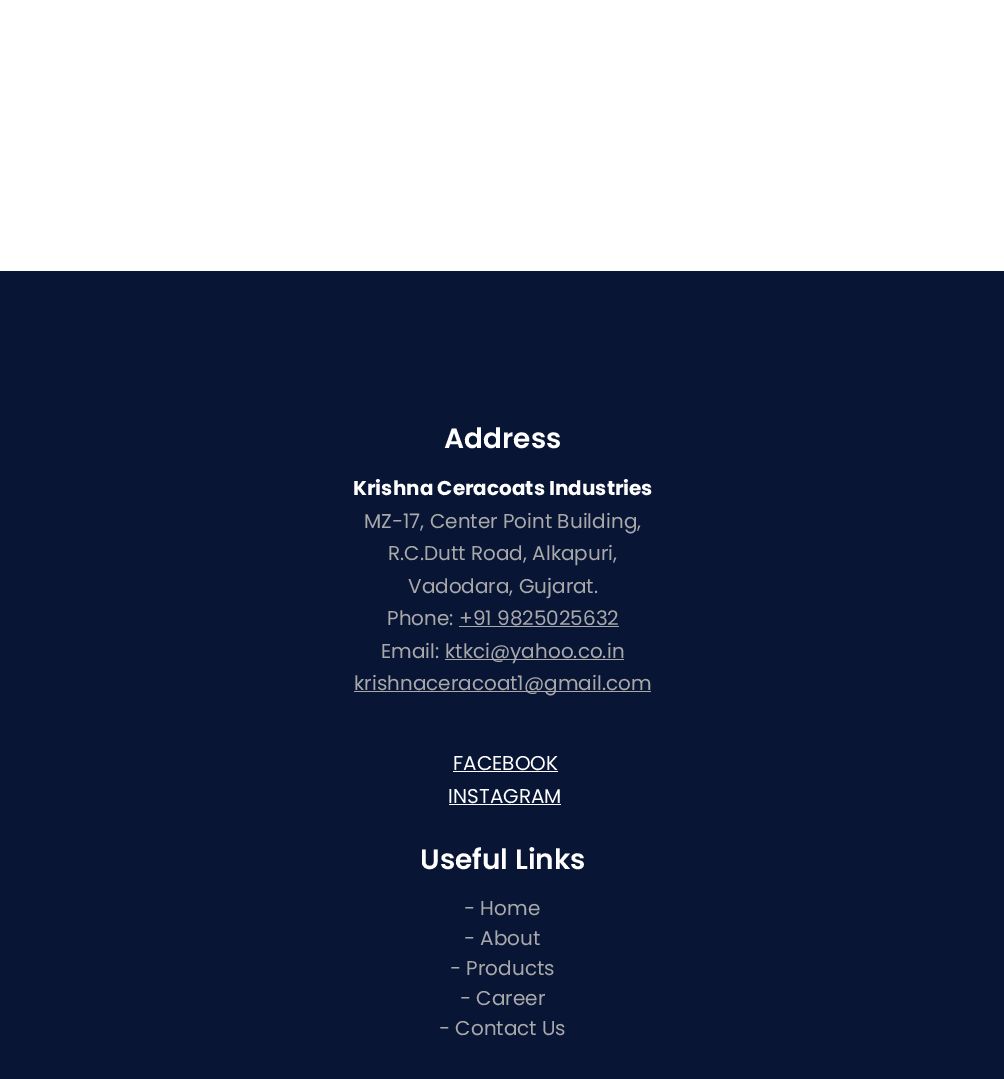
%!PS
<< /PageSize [1004 1079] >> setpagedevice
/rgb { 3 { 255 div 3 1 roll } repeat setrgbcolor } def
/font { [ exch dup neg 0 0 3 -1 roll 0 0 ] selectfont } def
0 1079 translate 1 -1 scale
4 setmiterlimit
255 255 255 rgb
0 0 1004 1079 rectfill
[
  [0 271 1004 808 8 21 53]
  [459 626 160 1 169 169 170]
  [445 659 179 1 169 169 170]
  [354 691 297 1 169 169 170]
  [453 771 105 1 255 255 255]
  [449 804 112 1 255 255 255]
] { aload pop rgb rectfill } forall
/Poppins-SemiBold 28 font
444 448 moveto (Address) show
/Poppins-Bold 20 font
353 495 moveto (Krishna Ceracoats Industries) show
/Poppins-Regular 20 font
169 169 170 rgb
[
  [(MZ-17, Center Point Building,) 364 528]
  [(R.C.Dutt Road, Alkapuri,) 388 560]
  [(Vadodara, Gujarat.) 408 593]
  [(Phone: +91 9825025632) 387 625]
  [(Email:) 381 658]
  [(ktkci@yahoo.co.in) 445 658]
  [(krishnaceracoat1@gmail.com) 354 690]
] { aload pop moveto show } forall
255 255 255 rgb
453 770 moveto (FACEBOOK) show
448 803 moveto (INSTAGRAM) show
/Poppins-SemiBold 28 font
420 869 moveto (Useful Links) show
/Poppins-Regular 20 font
169 169 170 rgb
[
  [(- Home) 464 915]
  [(- About) 464 945]
  [(- Products) 450 975]
  [(- Career) 460 1005]
  [(- Contact Us) 439 1035]
] { aload pop moveto show } forall
showpage
